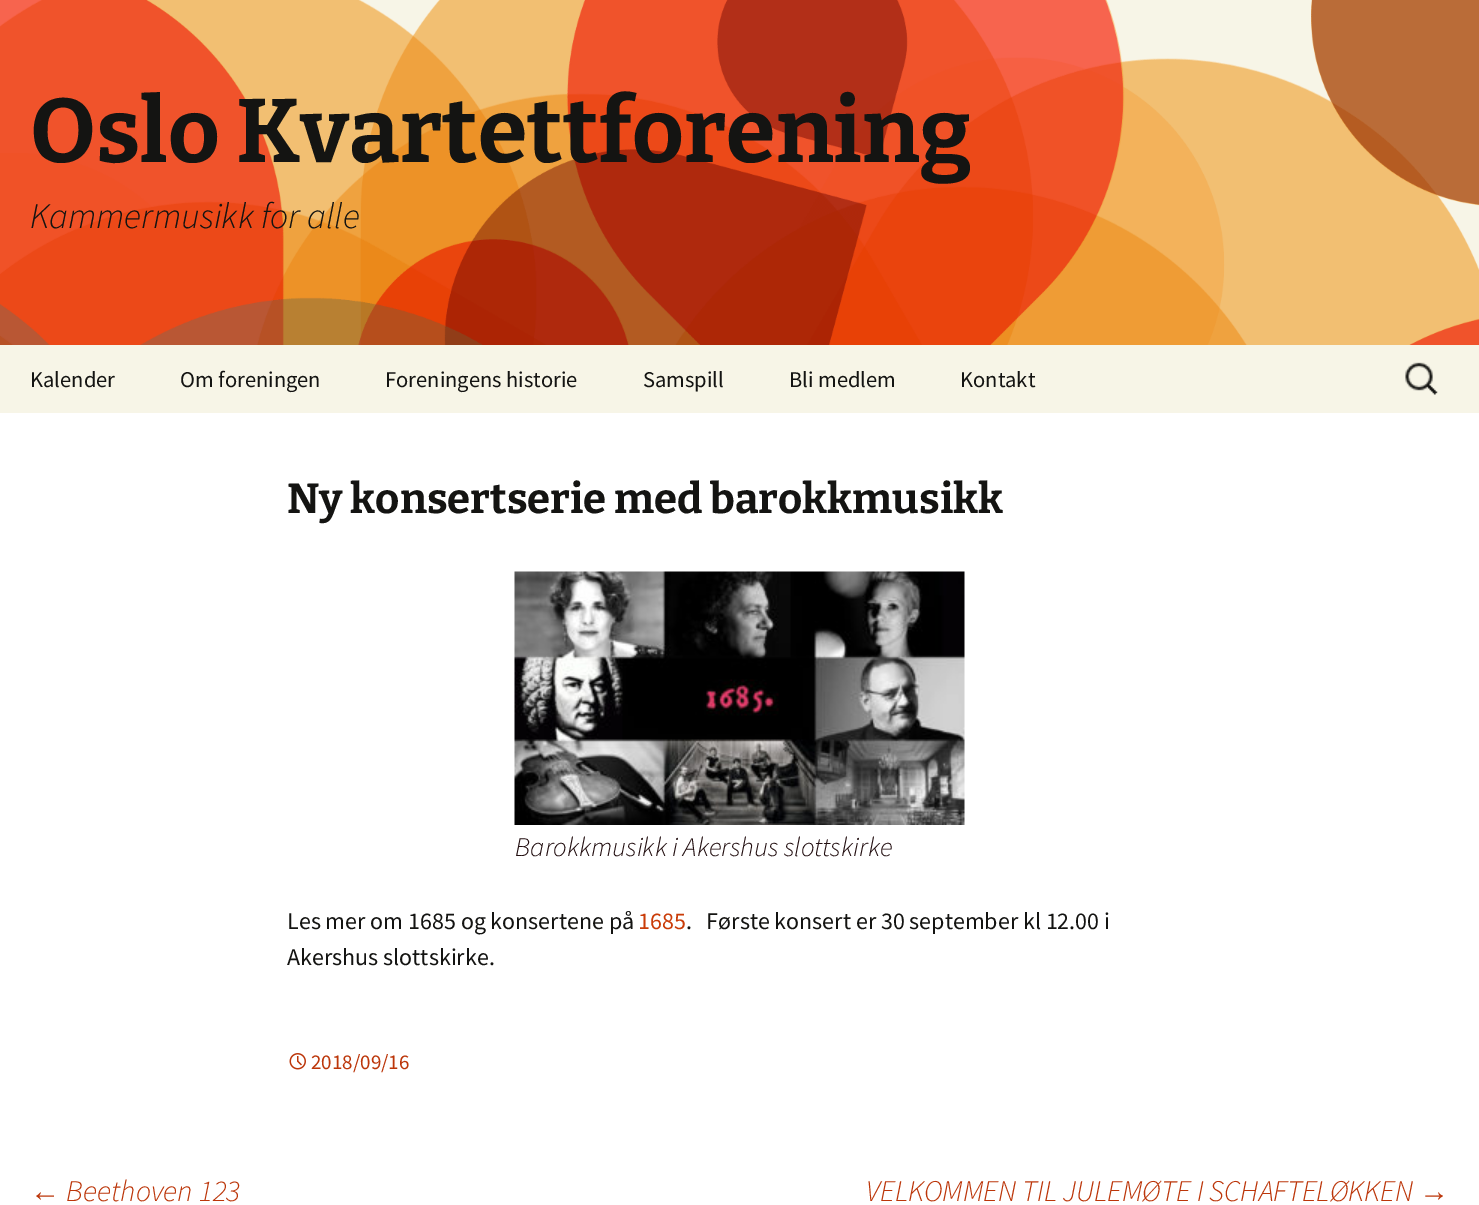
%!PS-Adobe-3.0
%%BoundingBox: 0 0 1479 1205
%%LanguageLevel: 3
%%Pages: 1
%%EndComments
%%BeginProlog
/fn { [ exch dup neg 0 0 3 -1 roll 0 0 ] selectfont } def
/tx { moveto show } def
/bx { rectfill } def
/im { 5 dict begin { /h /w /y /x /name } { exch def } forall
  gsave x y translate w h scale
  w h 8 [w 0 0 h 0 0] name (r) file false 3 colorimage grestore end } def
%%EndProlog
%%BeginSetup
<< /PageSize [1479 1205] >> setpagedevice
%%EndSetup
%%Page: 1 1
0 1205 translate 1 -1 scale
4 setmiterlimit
1 setgray
0 0 1479 1205 bx
(image0.raw) 0 0 1479 345 im
/Bitter-Thin 90 fn
0.078 0.078 0.071 setrgbcolor
(Oslo Kvartettforening) 30 162 tx
/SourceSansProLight-LightItalic 36 fn
(Kammermusikk for alle) 30 228 tx
0.969 0.961 0.906 setrgbcolor
0 345 1479 68 bx
/SourceSansPro-Regular 22.5 fn
0.078 0.078 0.071 setrgbcolor
(Kalender) 30 387 tx
(Om foreningen) 180 387 tx
(Foreningens historie) 385 387 tx
(Samspill) 643 387 tx
(Bli medlem) 789 387 tx
(Kontakt) 960 387 tx
(image1.raw) 1405 362 33 33 im
/Bitter-Thin 42 fn
(Ny konsertserie med barokkmusikk) 287 513 tx
(image2.raw) 514 571 451 254 im
/SourceSansProLight-LightItalic 27 fn
0.133 0.055 0.063 setrgbcolor
(Barokkmusikk i Akershus slottskirke) 515 856 tx
/SourceSansPro-Regular 24 fn
0.078 0.078 0.071 setrgbcolor
(Les mer om 1685 og konsertene på) 287 929 tx
0.792 0.235 0.031 setrgbcolor
(1685) 638 929 tx
0.078 0.078 0.071 setrgbcolor
(.   Første konsert er 30 september kl 12.00 i) 686 929 tx
(Akershus slottskirke.) 287 965 tx
(image3.raw) 289 1053 17 17 im
/SourceSansPro-Regular 21 fn
0.737 0.212 0.039 setrgbcolor
(2018/09/16) 311 1069 tx
/LiberationSans-Italic 30 fn
(←) 30 1201 tx
/SourceSansProLight-LightItalic 30 fn
(Beethoven 123) 66 1201 tx
(VELKOMMEN TIL JULEMØTE I SCHAFTELØKKEN) 866 1201 tx
/LiberationSans-Italic 30 fn
(→) 1419 1201 tx
showpage
%%EOF
